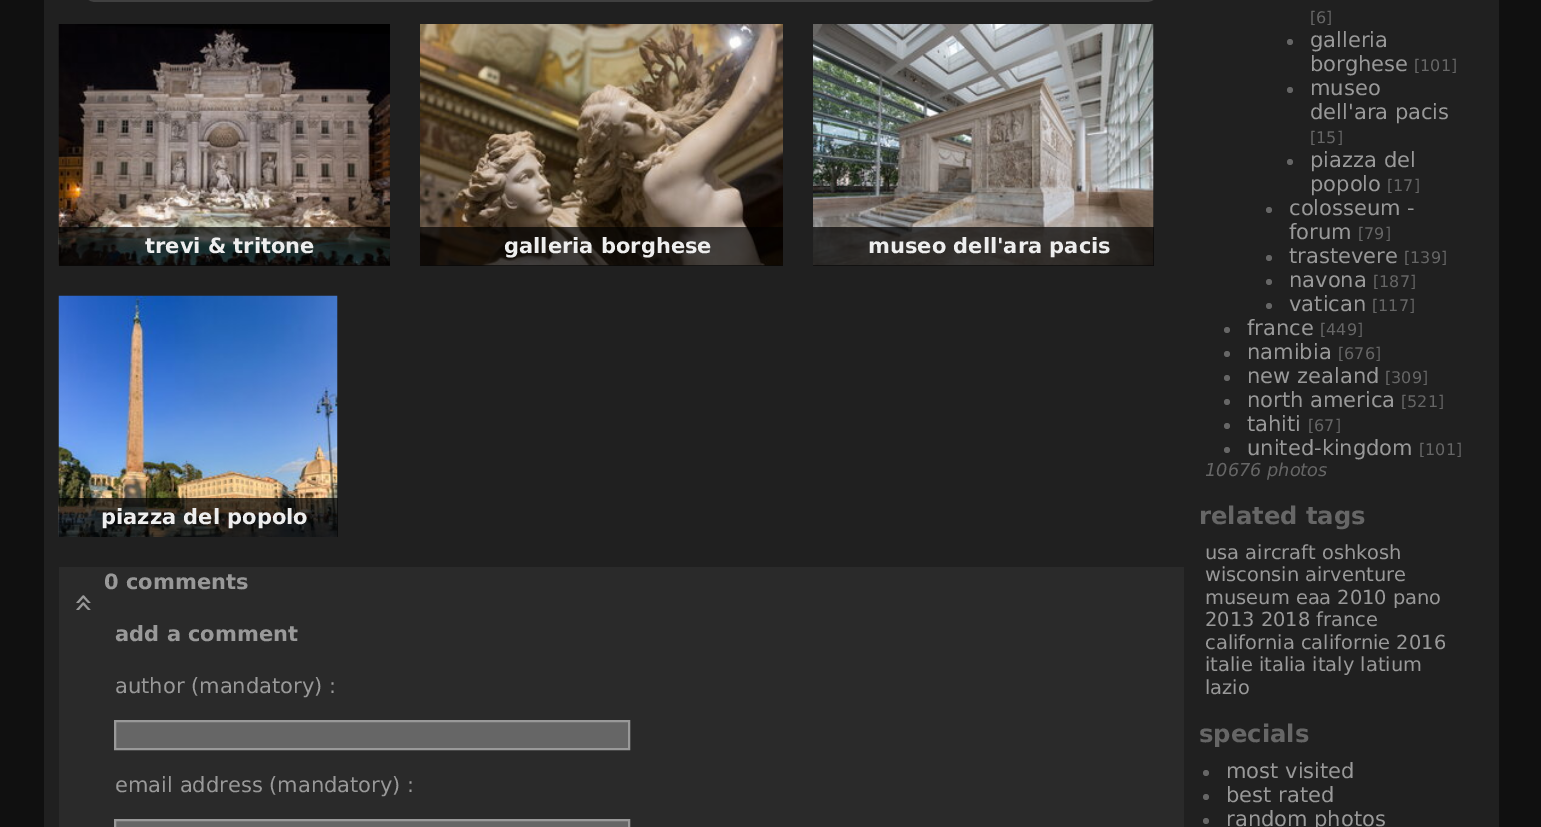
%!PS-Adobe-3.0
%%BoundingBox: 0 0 1541 827
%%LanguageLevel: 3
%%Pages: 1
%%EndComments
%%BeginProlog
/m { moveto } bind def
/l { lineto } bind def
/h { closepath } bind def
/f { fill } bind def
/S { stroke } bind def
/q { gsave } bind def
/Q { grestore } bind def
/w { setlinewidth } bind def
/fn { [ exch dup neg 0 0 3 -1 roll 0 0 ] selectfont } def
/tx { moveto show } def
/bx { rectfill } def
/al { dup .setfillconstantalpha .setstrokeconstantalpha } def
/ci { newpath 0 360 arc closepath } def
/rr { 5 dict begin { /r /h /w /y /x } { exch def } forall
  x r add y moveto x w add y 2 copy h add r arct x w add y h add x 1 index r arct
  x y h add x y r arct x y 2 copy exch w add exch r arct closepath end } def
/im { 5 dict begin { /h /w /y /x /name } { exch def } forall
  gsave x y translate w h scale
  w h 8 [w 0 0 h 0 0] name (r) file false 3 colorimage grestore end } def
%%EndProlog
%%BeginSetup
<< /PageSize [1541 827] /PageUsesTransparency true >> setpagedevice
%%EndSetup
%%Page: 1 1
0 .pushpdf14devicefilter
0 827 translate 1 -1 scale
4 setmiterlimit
0.063 setgray
0 0 1541 827 bx
0.125 setgray
44 0 1455 827 bx
0.251 setgray
81 -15 1080 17 15 rr f
(image0.raw) 58 24 332 242 im
0.7 al
0 setgray
59 227 331 39 bx
/DejaVuSans-Bold 21 fn
1 al
0.933 setgray
(trevi & tritone) 145 253 tx
(image1.raw) 420 24 363 242 im
0.7 al
0 setgray
420 227 363 39 bx
1 al
0.933 setgray
(galleria borghese) 504 253 tx
(image2.raw) 813 24 341 242 im
0.7 al
0 setgray
813 227 341 39 bx
1 al
0.933 setgray
(museo dell'ara pacis) 868 253 tx
(image3.raw) 58 295 280 242 im
0.7 al
0 setgray
59 498 279 39 bx
1 al
0.933 setgray
(piazza del popolo) 101 524 tx
0.165 setgray
59 567 1125 260 bx
0.6 setgray
(0 comments) 104 589 tx
/DejaVuSans-Regular 33 fn
q 93 613 translate -90 rotate 0 0 m (») show Q
/DejaVuSans-Bold 21 fn
(add a comment) 115 641 tx
/DejaVuSans-Regular 21 fn
(author \(mandatory\) :) 115 693 tx
0.4 setgray
115 721 m 629 721 l 629 749 l 115 749 l h q f Q
0.6 setgray
2 w
S
(email address \(mandatory\) :) 115 792 tx
0.4 setgray
115 820 m 629 820 l 629 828 l 115 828 l h q f Q
0.6 setgray
S
/DejaVuSans-Regular 16 fn
0.4 setgray
([6]) 1310 23 tx
1290 42 3 ci f
/DejaVuSans-Regular 21 fn
0.6 setgray
(galleria) 1310 47 tx
(borghese) 1310 71 tx
/DejaVuSans-Regular 16 fn
0.4 setgray
([101]) 1414 71 tx
1290 90 3 ci f
/DejaVuSans-Regular 21 fn
0.6 setgray
(museo) 1310 95 tx
(dell'ara pacis) 1310 119 tx
/DejaVuSans-Regular 16 fn
0.4 setgray
([15]) 1310 143 tx
1290 162 3 ci f
/DejaVuSans-Regular 21 fn
0.6 setgray
(piazza del) 1310 167 tx
(popolo) 1310 191 tx
/DejaVuSans-Regular 16 fn
0.4 setgray
([17]) 1387 191 tx
1269 210 3 ci f
/DejaVuSans-Regular 21 fn
0.6 setgray
(colosseum -) 1289 215 tx
(forum) 1289 239 tx
/DejaVuSans-Regular 16 fn
0.4 setgray
([79]) 1358 239 tx
1269 258 3 ci f
/DejaVuSans-Regular 21 fn
0.6 setgray
(trastevere) 1289 263 tx
/DejaVuSans-Regular 16 fn
0.4 setgray
([139]) 1404 263 tx
1269 282 3 ci f
/DejaVuSans-Regular 21 fn
0.6 setgray
(navona) 1289 287 tx
/DejaVuSans-Regular 16 fn
0.4 setgray
([187]) 1373 287 tx
1269 306 3 ci f
/DejaVuSans-Regular 21 fn
0.6 setgray
(vatican) 1289 311 tx
/DejaVuSans-Regular 16 fn
0.4 setgray
([117]) 1372 311 tx
1227 330 3 ci f
/DejaVuSans-Regular 21 fn
0.6 setgray
(france) 1247 335 tx
/DejaVuSans-Regular 16 fn
0.4 setgray
([449]) 1320 335 tx
1227 354 3 ci f
/DejaVuSans-Regular 21 fn
0.6 setgray
(namibia) 1247 359 tx
/DejaVuSans-Regular 16 fn
0.4 setgray
([676]) 1338 359 tx
1227 378 3 ci f
/DejaVuSans-Regular 21 fn
0.6 setgray
(new zealand) 1247 383 tx
/DejaVuSans-Regular 16 fn
0.4 setgray
([309]) 1385 383 tx
1227 402 3 ci f
/DejaVuSans-Regular 21 fn
0.6 setgray
(north america) 1247 407 tx
/DejaVuSans-Regular 16 fn
0.4 setgray
([521]) 1401 407 tx
1227 426 3 ci f
/DejaVuSans-Regular 21 fn
0.6 setgray
(tahiti) 1247 431 tx
/DejaVuSans-Regular 16 fn
0.4 setgray
([67]) 1308 431 tx
1227 450 3 ci f
/DejaVuSans-Regular 21 fn
0.6 setgray
(united-kingdom) 1247 455 tx
/DejaVuSans-Regular 16 fn
0.4 setgray
([101]) 1419 455 tx
/DejaVuSans-Italic 17.75 fn
(10676 photos) 1205 476 tx
/DejaVuSans-Bold 24.25 fn
(related tags) 1199 524 tx
/DejaVuSans-Regular 19.4 fn
0.6 setgray
(usa aircraft oshkosh) 1205 559 tx
(wisconsin airventure) 1205 581 tx
(museum eaa 2010 pano) 1205 604 tx
(2013 2018 france) 1205 626 tx
(california californie 2016) 1205 649 tx
(italie italia italy latium) 1205 671 tx
(lazio) 1205 694 tx
/DejaVuSans-Bold 24.25 fn
0.4 setgray
(specials) 1199 742 tx
1206 773 3 ci f
/DejaVuSans-Regular 21 fn
0.6 setgray
(most visited) 1226 778 tx
0.4 setgray
1206 797 3 ci f
0.6 setgray
(best rated) 1226 802 tx
0.4 setgray
1206 821 3 ci f
0.6 setgray
(random photos) 1226 826 tx
.poppdf14devicefilter showpage
%%EOF
